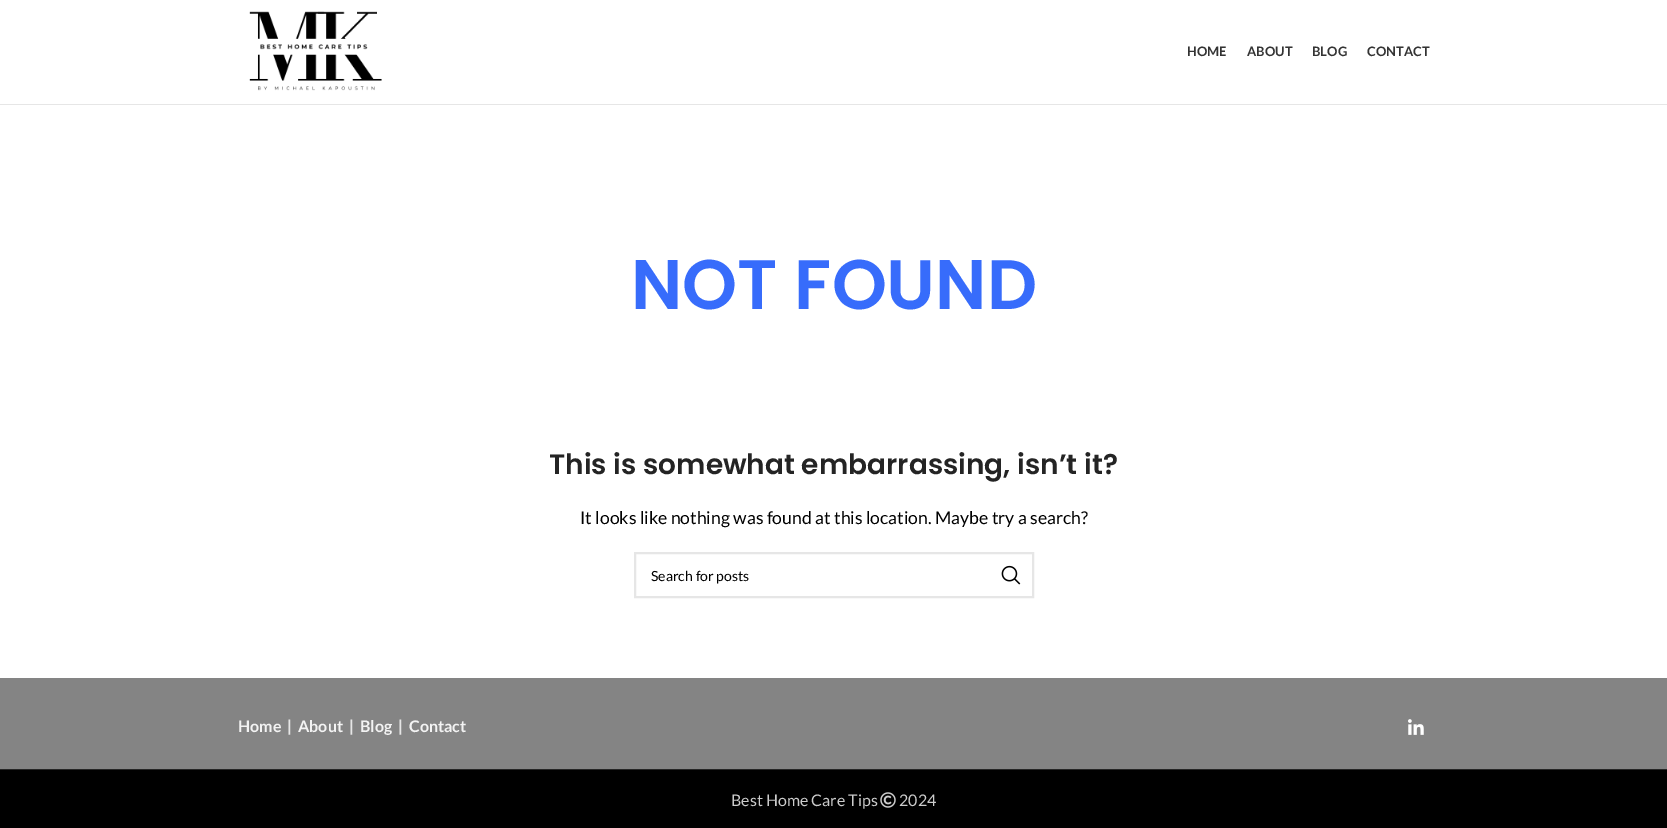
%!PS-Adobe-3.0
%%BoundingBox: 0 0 1667 828
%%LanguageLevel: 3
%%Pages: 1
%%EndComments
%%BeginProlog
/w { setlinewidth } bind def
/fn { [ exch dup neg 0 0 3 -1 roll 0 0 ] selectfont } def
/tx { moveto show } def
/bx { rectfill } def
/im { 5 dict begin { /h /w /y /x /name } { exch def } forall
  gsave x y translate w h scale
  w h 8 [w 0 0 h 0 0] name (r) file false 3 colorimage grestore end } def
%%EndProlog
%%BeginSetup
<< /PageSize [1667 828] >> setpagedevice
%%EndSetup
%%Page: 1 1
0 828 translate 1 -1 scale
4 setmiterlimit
1 setgray
0 0 1667 828 bx
0.902 setgray
0 104 1667 1 bx
(image0.raw) 249 11 133 80 im
/Lato-Bold 13 fn
0.2 setgray
(HOME) 1187 56 tx
(ABOUT) 1247 56 tx
(BLOG) 1312 56 tx
(CONTACT) 1367 56 tx
/Poppins-SemiBold 70 fn
0.216 0.424 0.984 setrgbcolor
(NOT FOUND) 631 309 tx
/Poppins-SemiBold 28 fn
0.141 setgray
(This is somewhat embarrassing, isn’t it?) 549 474 tx
/Lato-Regular 17.6 fn
0 setgray
(It looks like nothing was found at this location. Maybe try a search?) 580 524 tx
0.902 setgray
2 w
635 553 398 44 rectstroke
/Lato-Regular 14 fn
0 setgray
(Search for posts) 651 581 tx
(image1.raw) 1001 565 20 20 im
0 770 1667 58 bx
0.518 setgray
0 678 1667 91 bx
/Lato-Bold 16 fn
0.953 setgray
(Home) 238 732 tx
0.902 setgray
(|) 287 732 tx
0.953 setgray
(About) 298 732 tx
0.902 setgray
(|) 349 732 tx
0.953 setgray
(Blog) 360 732 tx
0.902 setgray
(|) 398 732 tx
0.953 setgray
(Contact) 409 732 tx
(image2.raw) 1408 719 16 16 im
0.149 setgray
0 769 1667 1 bx
/Lato-Regular 16 fn
0.8 setgray
(Best Home Care Tips) 731 806 tx
(image3.raw) 880 792 16 16 im
(2024) 899 806 tx
showpage
%%EOF
